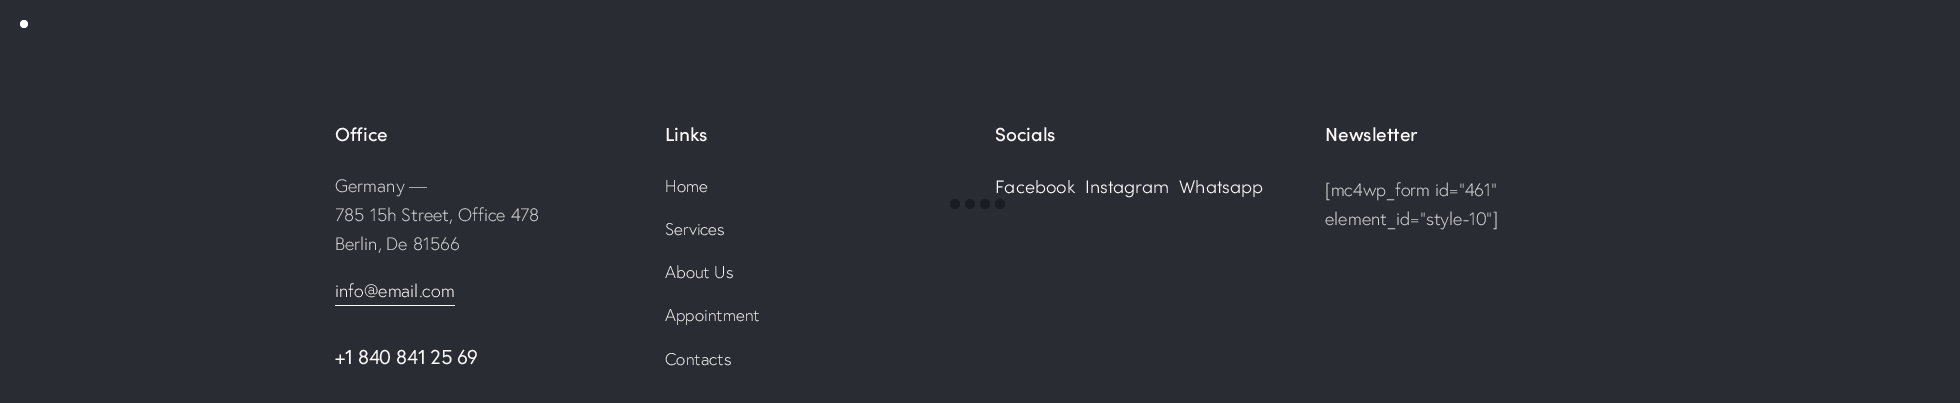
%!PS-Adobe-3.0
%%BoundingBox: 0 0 1960 403
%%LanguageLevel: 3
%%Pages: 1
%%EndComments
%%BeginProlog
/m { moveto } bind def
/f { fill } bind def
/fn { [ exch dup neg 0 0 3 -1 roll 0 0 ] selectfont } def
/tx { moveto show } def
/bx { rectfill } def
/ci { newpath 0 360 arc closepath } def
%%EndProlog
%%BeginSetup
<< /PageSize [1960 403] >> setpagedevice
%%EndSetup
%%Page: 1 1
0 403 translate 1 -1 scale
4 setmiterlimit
0.165 0.173 0.2 setrgbcolor
0 0 1960 403 bx
1 setgray
24 24 4 ci f
/Sofia-Medium 19 fn
0.976 setgray
(Office) 335 141 tx
/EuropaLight-Light 18 fn
0.839 0.843 0.847 setrgbcolor
(Germany —) 335 192 tx
(785 15h Street, Office 478) 335 221 tx
(Berlin, De 81566) 335 250 tx
0.976 setgray
(info@email.com) 335 297 tx
335 305 120 1 bx
/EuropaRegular-Regular 20 fn
335 364 m -0.4 0 (+1 840 841 25 69) ashow
/Sofia-Medium 19 fn
(Links) 665 141 tx
/EuropaLight-Light 17 fn
(Home) 665 192 tx
(Services) 665 235 tx
(About Us) 665 278 tx
(Appointment) 665 321 tx
(Contacts) 665 365 tx
/Sofia-Medium 19 fn
(Socials) 995 141 tx
/Sofia-Light 18 fn
(Facebook) 995 193 tx
(Instagram) 1085 193 tx
(Whatsapp) 1179 193 tx
/Sofia-Medium 19 fn
(Newsletter) 1325 141 tx
/EuropaLight-Light 18 fn
0.839 0.843 0.847 setrgbcolor
([mc4wp_form id="461") 1325 196 tx
(element_id="style-10"]) 1325 225 tx
0.098 0.11 0.133 setrgbcolor
955 204 5 ci f
970 204 5 ci f
985 204 5 ci f
1000 204 5 ci f
showpage
%%EOF
